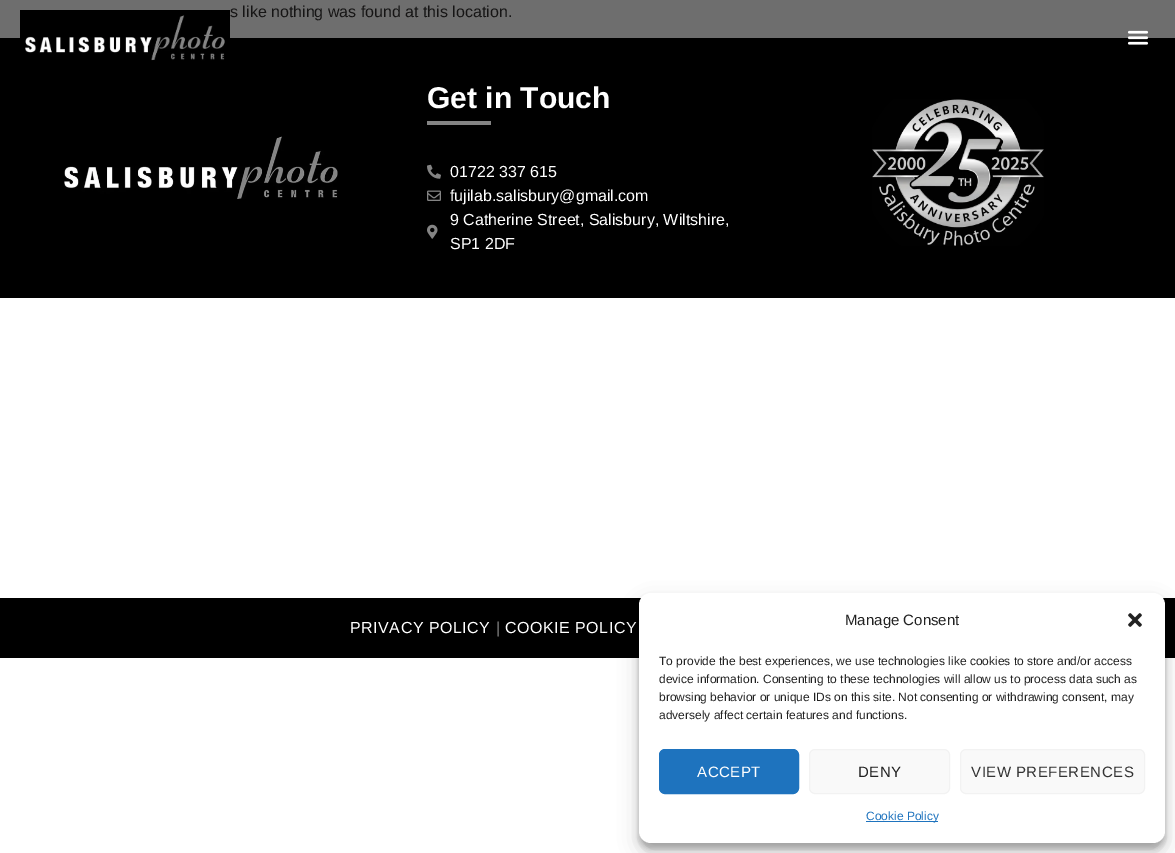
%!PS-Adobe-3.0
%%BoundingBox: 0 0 1175 853
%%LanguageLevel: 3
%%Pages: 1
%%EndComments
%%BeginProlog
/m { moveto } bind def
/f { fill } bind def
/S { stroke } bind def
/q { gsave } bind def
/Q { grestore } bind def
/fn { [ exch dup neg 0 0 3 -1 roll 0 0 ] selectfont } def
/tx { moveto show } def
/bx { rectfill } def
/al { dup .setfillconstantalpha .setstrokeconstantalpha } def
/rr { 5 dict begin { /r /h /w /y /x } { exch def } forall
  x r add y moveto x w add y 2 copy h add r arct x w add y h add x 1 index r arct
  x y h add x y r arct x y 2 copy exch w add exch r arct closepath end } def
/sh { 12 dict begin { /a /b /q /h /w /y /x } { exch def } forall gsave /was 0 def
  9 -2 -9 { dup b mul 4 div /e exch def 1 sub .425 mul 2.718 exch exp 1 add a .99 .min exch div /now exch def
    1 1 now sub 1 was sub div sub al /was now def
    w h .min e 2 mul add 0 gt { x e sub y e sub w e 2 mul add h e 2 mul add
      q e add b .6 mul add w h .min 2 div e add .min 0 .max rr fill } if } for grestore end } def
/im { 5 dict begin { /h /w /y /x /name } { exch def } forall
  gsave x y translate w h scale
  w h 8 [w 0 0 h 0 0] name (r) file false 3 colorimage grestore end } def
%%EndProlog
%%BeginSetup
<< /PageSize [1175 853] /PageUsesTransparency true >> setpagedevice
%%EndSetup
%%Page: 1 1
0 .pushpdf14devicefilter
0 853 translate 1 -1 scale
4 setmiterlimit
1 setgray
0 0 1175 853 bx
0.431 setgray
0 0 1175 38 bx
/LiberationSans-Regular 16 fn
0.086 0.082 0.082 setrgbcolor
(s like nothing was found at this location.) 230 17 tx
0 setgray
0 38 1175 260 bx
(image0.raw) 20 10 210 51 im
(image1.raw) 1127 30 22 15 im
(image2.raw) 64 136 274 63 im
/LiberationSans-Bold 30 fn
1 setgray
(Get in Touch) 427 108 tx
0.518 setgray
427 121 64 4 bx
(image3.raw) 427 164 14 15 im
/LiberationSans-Regular 16 fn
1 setgray
(01722 337 615) 450 177 tx
(image4.raw) 427 190 14 11 im
(fujilab.salisbury@gmail.com) 450 201 tx
(image5.raw) 427 224 11 15 im
(9 Catherine Street, Salisbury, Wiltshire,) 450 225 tx
(SP1 2DF) 450 249 tx
(image6.raw) 872 99 172 147 im
0 setgray
0 598 1175 60 bx
1 setgray
350 633 m 0.5 0 (PRIVACY POLICY) ashow
0.518 setgray
496 633 m 0.5 0 (|) ashow
1 setgray
505 633 m 0.5 0 (COOKIE POLICY) ashow
0 setgray
639 599 526 250 12 3 0.23 sh
639 603 526 250 12 10 0.19 sh
1 setgray
639 593 526 250 12 rr f
/LiberationSans-Regular 15 fn
0.133 setgray
(Manage Consent) 845 625 tx
(image7.raw) 1128 613 14 14 im
/LiberationSans-Regular 12 fn
(To provide the best experiences, we use technologies like cookies to store and/or access) 659 665 tx
(device information. Consenting to these technologies will allow us to process data such as) 659 683 tx
(browsing behavior or unique IDs on this site. Not consenting or withdrawing consent, may) 659 701 tx
(adversely affect certain features and functions.) 659 719 tx
0.118 0.451 0.745 setrgbcolor
659.5 749.5 139 44 5.5 rr q f Q
S
/LiberationSans-Regular 15 fn
1 setgray
697 777 m 0.5 0 (ACCEPT) ashow
0.976 setgray
809.5 749.5 140 44 5.5 rr q f Q
0.949 setgray
S
0.133 setgray
858 777 m 0.5 0 (DENY) ashow
0.976 setgray
960.5 749.5 184 44 5.5 rr q f Q
0.949 setgray
S
0.2 setgray
971 777 m 0.5 0 (VIEW PREFERENCES) ashow
0.118 0.451 0.745 setrgbcolor
866 821 72 1 bx
/LiberationSans-Regular 12 fn
(Cookie Policy) 866 820 tx
.poppdf14devicefilter showpage
%%EOF
